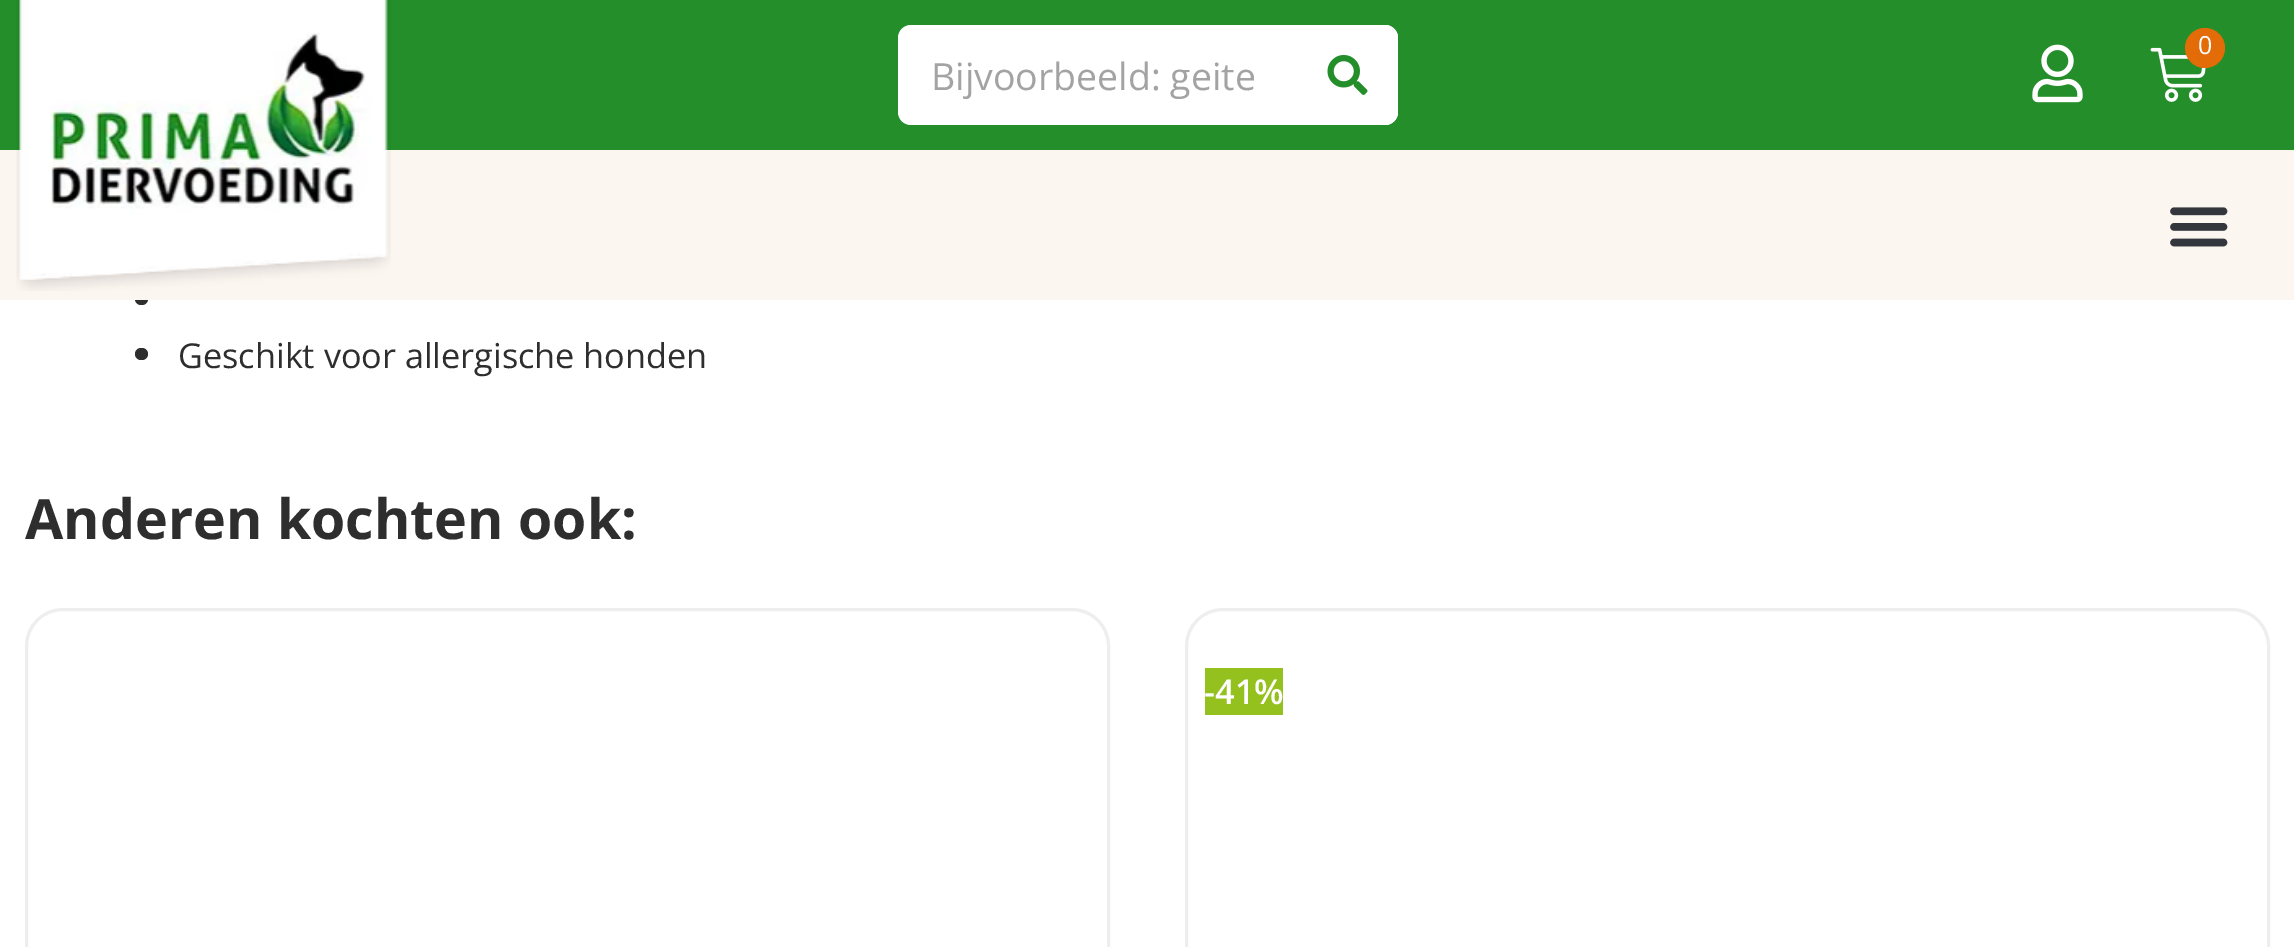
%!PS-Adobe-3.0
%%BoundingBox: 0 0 2294 947
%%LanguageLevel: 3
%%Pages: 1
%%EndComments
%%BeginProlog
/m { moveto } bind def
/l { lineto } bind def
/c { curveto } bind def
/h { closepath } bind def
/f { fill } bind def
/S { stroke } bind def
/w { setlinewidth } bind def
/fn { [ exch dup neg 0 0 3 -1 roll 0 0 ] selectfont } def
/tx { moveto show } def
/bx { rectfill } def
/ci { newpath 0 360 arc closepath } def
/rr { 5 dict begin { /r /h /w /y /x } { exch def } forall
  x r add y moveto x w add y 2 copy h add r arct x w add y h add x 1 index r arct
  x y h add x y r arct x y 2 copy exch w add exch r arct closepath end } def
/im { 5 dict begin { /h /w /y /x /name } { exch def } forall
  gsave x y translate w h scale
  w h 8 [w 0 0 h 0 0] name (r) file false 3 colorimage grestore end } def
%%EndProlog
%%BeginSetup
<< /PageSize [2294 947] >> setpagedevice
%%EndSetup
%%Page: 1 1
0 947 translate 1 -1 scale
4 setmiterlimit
1 setgray
0 0 2294 947 bx
0.141 0.557 0.165 setrgbcolor
0 0 2294 150 bx
0.18 setgray
135 293 13 12 6 rr f
0.988 0.965 0.945 setrgbcolor
0 150 2294 150 bx
(image0.raw) 16 0 375 291 im
(image1.raw) 2032 44 51 59 im
(image2.raw) 2150 47 56 55 im
0.89 0.424 0.035 setrgbcolor
2205 48 20 ci f
/OpenSans-Regular 25 fn
1 setgray
(0) 2198 54 tx
898 25 500 100 13 rr f
/OpenSans-Regular 37.5 fn
0.639 setgray
(Bijvoorbeeld: geite) 931 90 tx
1 setgray
1298 25 m 1385 25 l 1392 25 1398 31 1398 38 c 1398 112 l 1398 119 1392 125 1385 125 c 1298 125 l h f
(image3.raw) 1327 55 41 40 im
(image4.raw) 2170 207 58 40 im
0.18 setgray
135 348 13 12 6 rr f
/OpenSans-Regular 34.25 fn
(Geschikt voor allergische honden) 178 368 tx
/OpenSans-Bold 55.5 fn
(Anderen kochten ook:) 25 539 tx
0.933 setgray
3 w
26.5 609.5 1082 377 36.5 rr S
1186.5 609.5 1082 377 36.5 rr S
0.584 0.757 0.122 setrgbcolor
1205 668 78 47 bx
/OpenSans-SemiBold 34.25 fn
1 setgray
(-41%) 1204 704 tx
showpage
%%EOF
